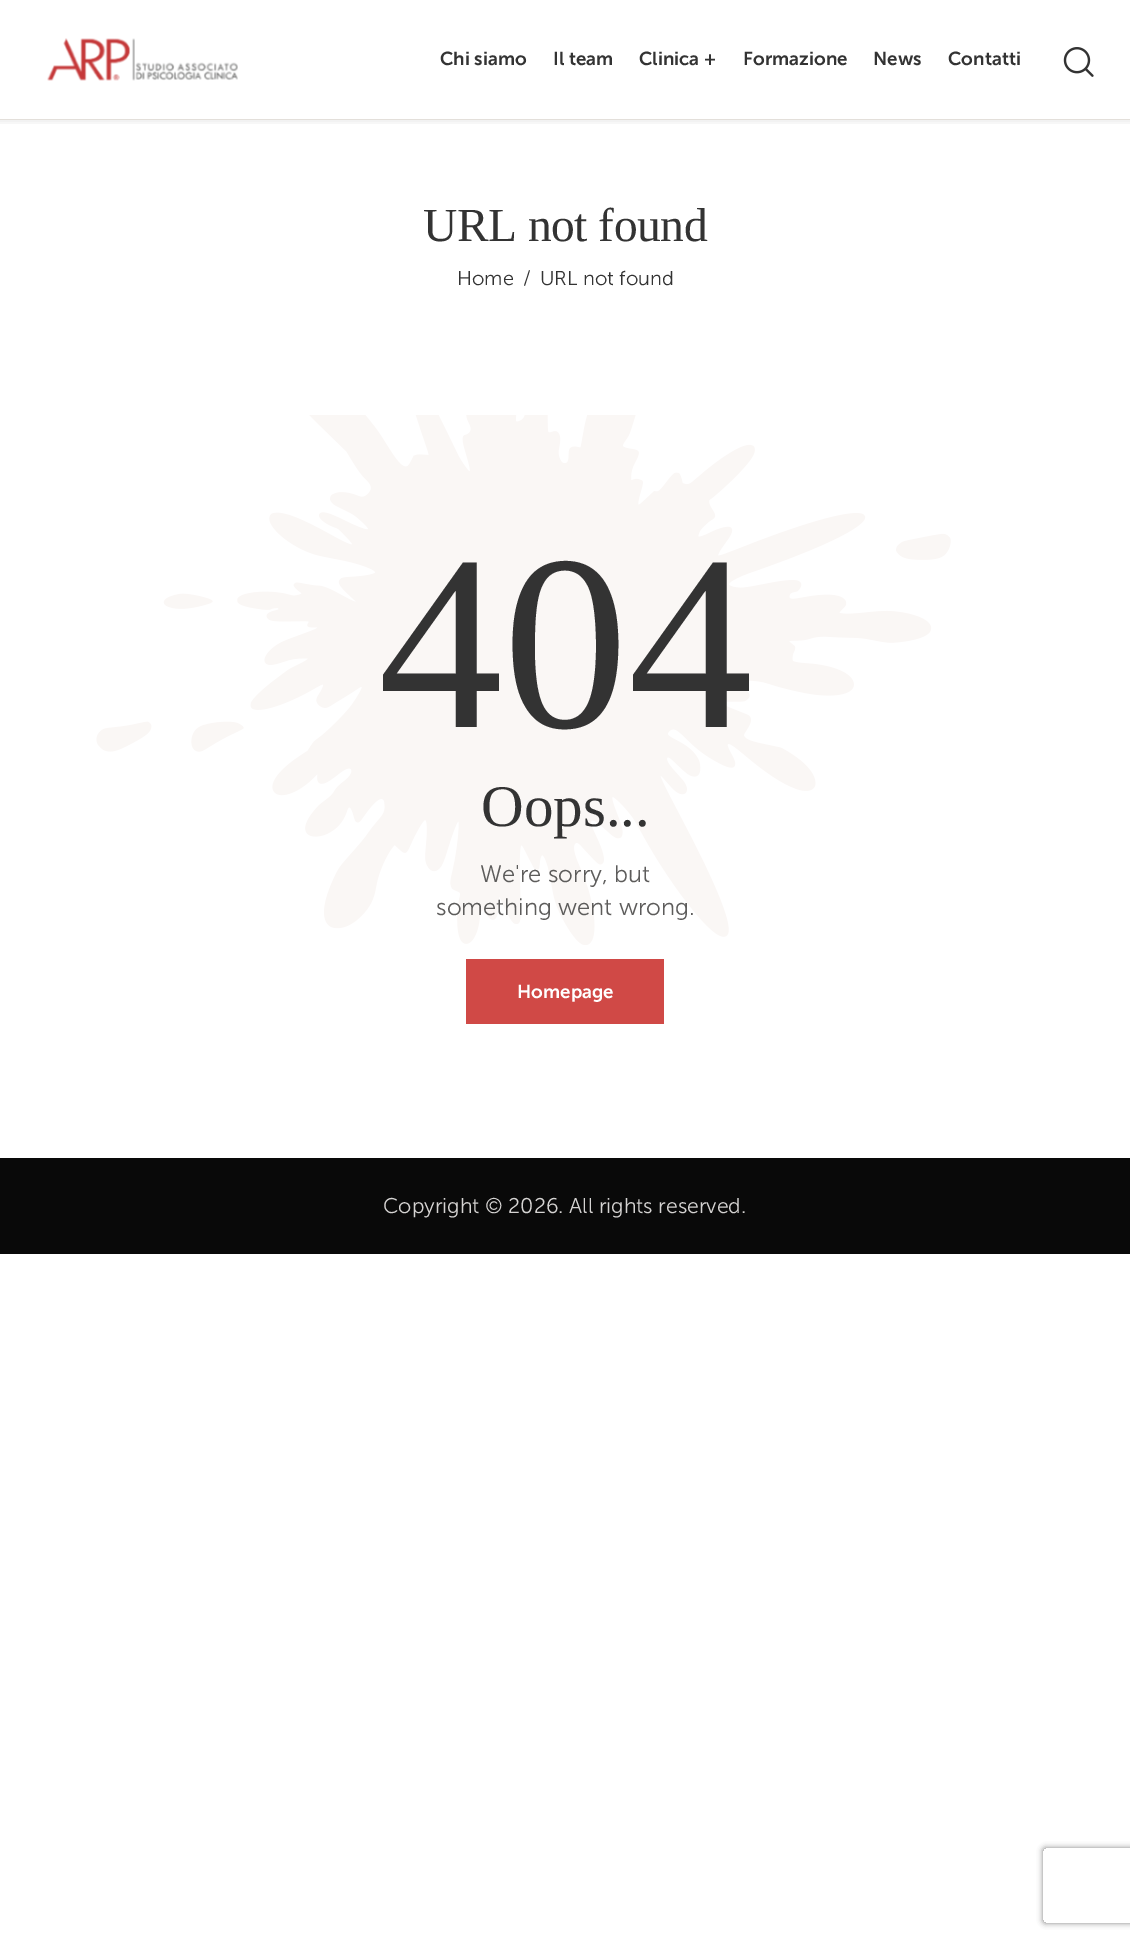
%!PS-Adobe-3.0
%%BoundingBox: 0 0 1130 1939
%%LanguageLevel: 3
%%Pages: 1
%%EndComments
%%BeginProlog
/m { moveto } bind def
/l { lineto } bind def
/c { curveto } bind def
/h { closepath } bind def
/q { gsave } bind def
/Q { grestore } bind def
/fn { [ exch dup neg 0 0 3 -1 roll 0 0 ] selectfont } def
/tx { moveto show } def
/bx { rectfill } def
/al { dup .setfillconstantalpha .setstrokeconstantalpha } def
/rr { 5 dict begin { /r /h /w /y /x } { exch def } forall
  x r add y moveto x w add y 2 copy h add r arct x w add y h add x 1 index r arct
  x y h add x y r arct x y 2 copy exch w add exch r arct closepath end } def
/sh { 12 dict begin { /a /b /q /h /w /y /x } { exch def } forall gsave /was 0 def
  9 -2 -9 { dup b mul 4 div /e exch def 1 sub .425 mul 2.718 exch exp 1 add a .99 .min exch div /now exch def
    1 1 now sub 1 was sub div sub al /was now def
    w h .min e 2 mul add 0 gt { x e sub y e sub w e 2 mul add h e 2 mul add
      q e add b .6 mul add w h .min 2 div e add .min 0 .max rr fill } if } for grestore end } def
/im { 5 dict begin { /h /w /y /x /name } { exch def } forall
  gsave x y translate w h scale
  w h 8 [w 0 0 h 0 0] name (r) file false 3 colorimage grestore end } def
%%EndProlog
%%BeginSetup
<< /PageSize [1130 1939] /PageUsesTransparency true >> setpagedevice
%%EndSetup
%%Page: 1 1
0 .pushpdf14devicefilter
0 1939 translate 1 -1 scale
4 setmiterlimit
1 setgray
0 0 1130 1939 bx
q
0 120 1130 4 rectclip
0 setgray
-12 1 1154 120 0 4 0.1 sh
Q
0.89 0.875 0.855 setrgbcolor
0 119 1130 1 bx
(image0.raw) 47 38 191 43 im
/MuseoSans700-SemiBold 18.75 fn
0.2 setgray
(Chi siamo) 440 65 tx
(Il team) 553 65 tx
(Clinica +) 639 65 tx
(Formazione) 743 65 tx
(News) 873 65 tx
(Contatti) 948 65 tx
(image1.raw) 1063 47 31 30 im
/LiberationSerif-Regular 47.5 fn
423 241 m -0.5 0 (URL not found) ashow
/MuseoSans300-Light 20 fn
(Home) 457 285 tx
(/) 523 285 tx
(URL not found) 540 285 tx
(image2.raw) 96 415 855 530 im
/LiberationSerif-Regular 250 fn
(404) 378 727 tx
/LiberationSerif-Regular 59 fn
(Oops...) 481 826 tx
/MuseoSans300-Light 23.75 fn
0.365 0.361 0.357 setrgbcolor
(We're sorry, but) 480 882 tx
(something went wrong.) 436 915 tx
0.816 0.286 0.275 setrgbcolor
466 959 198 65 bx
/MuseoSans700-SemiBold 18.75 fn
1 setgray
(Homepage) 517 998 tx
0.035 setgray
0 1158 1130 96 bx
/MuseoSans300-Light 21.25 fn
0.835 0.827 0.824 setrgbcolor
(Copyright © 2026. All rights reserved.) 383 1213 tx
q
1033 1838 m 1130 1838 l 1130 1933 l 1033 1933 l h 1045.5 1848 m 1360.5 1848 l 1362 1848 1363 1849 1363 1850.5 c 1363 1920.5 l 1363 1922 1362 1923 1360.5 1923 c 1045.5 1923 l 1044 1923 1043 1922 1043 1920.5 c 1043 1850.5 l 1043 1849 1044 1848 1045.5 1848 c h eoclip newpath
0.502 setgray
1043 1848 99 75 2.5 3 1 sh
Q
.poppdf14devicefilter showpage
%%EOF
